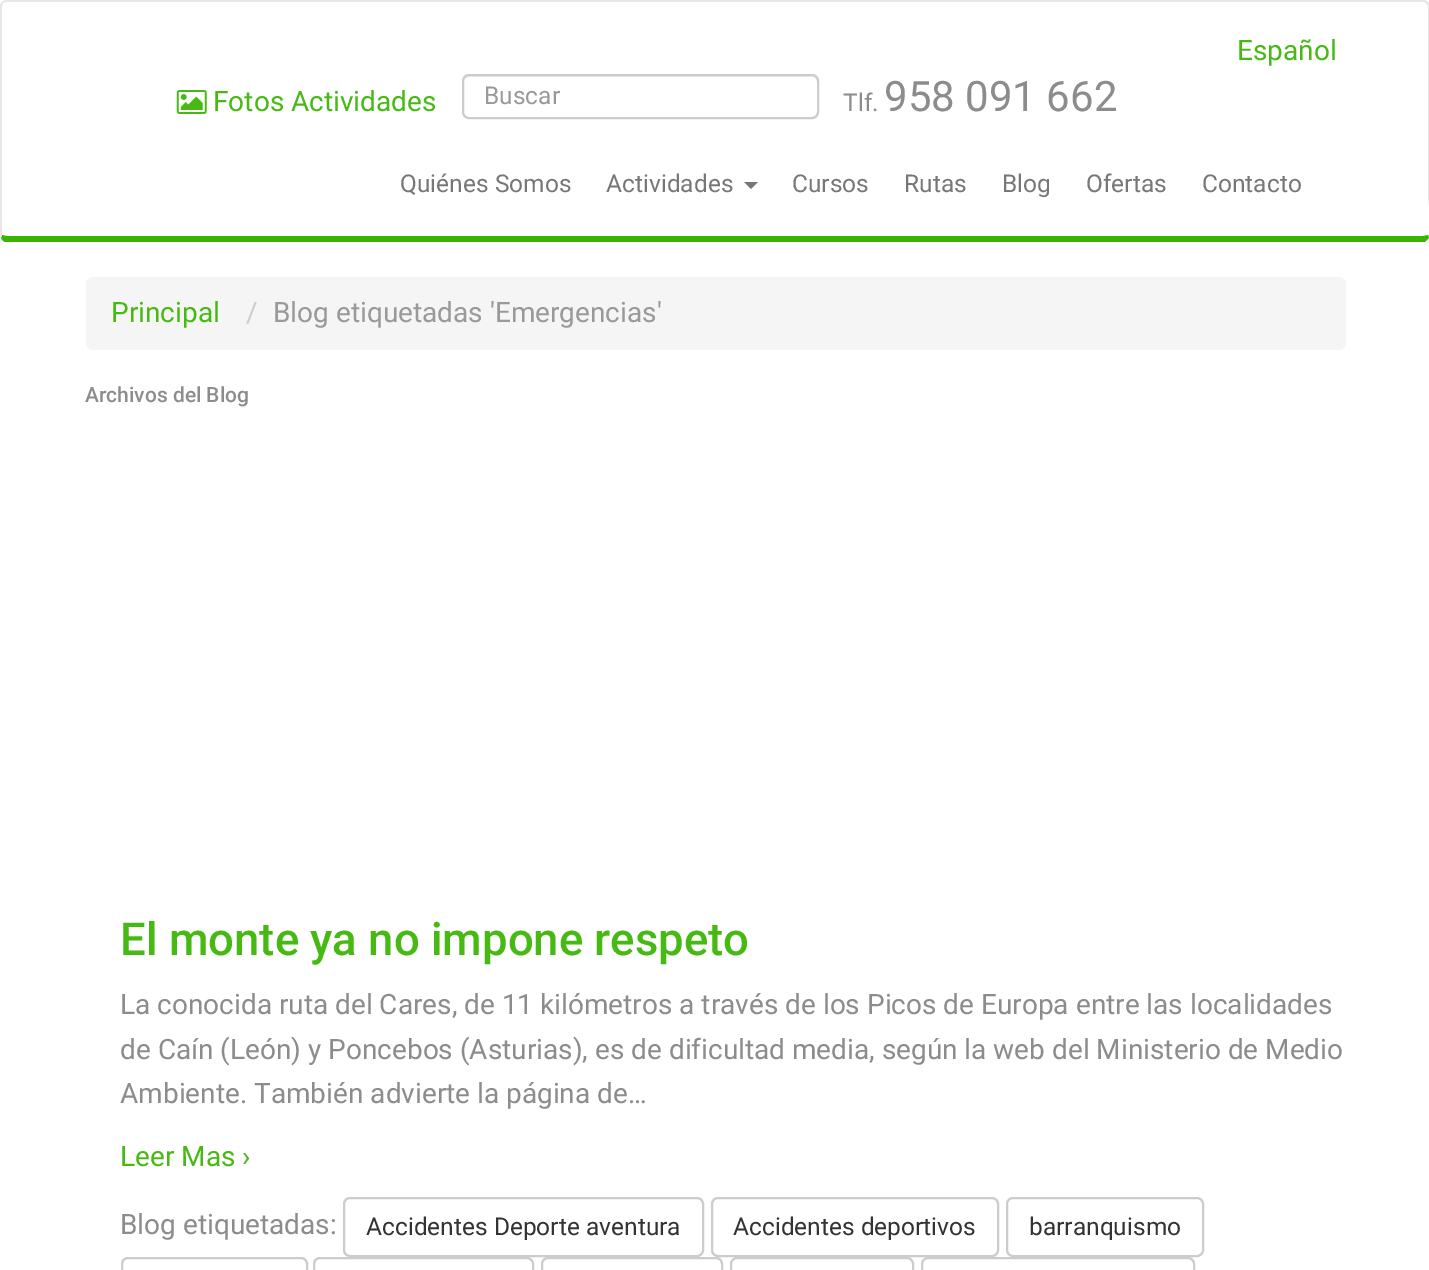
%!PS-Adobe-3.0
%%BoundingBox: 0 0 1429 1270
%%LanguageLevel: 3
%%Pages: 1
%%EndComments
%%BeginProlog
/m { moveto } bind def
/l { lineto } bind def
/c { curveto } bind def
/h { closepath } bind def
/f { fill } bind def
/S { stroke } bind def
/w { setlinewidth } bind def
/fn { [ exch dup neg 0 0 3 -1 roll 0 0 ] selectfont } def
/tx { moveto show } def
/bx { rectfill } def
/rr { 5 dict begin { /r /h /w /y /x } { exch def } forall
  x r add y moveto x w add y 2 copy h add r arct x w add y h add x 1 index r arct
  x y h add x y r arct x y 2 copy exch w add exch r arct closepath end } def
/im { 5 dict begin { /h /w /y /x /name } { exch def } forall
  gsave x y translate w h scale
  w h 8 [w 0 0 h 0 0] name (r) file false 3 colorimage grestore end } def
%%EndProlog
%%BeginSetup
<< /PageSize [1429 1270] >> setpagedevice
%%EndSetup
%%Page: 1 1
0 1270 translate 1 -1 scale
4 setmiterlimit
1 setgray
0 0 1429 1270 bx
0.906 setgray
7 0 m 5 0 3 1 2 2 c 3 3 l 4 2 6 2 7 2 c 1423 2 l 1424 2 1426 2 1426 3 c 1428 2 l 1427 1 1425 0 1423 0 c h f
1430 236 m 1429 238 l 1428 235 l 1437 226 1428 209 1428 196 c 1428 6 l 1426 3 l 1428 2 l 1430 5 l h f
0.22 0.71 0.004 setrgbcolor
5 242 m 3 241 2 240 1 238 c 2 235 l 3 235 5 236 7 236 c 1423 236 l 1425 236 1427 235 1428 235 c 1429 238 l 1425 242 l h f
0.906 setgray
0 7 m 0 234 l 1 238 l 2 235 l 2 7 l 2 6 2 4 3 3 c 2 2 l 1 3 0 5 0 7 c h f
/Roboto-Regular 28 fn
0.275 0.729 0.075 setrgbcolor
(Español) 1237 60 tx
(image0.raw) 176 90 31 24 im
(Fotos Actividades) 213 111 tx
0.925 setgray
469 77 m 812 77 l 815 77 817 79 817 82 c 817 79 816 75 812 75 c 469 75 l 465 75 464 79 464 82 c 464 79 466 77 469 77 c h f
0.8 setgray
2 w
463 75 355 43 6 rr S
/Roboto-Regular 24.5 fn
0.6 setgray
(Buscar) 484 104 tx
0.549 setgray
(Tlf.) 843 111 tx
/Roboto-Regular 42 fn
(958 091 662) 884 111 tx
/Roboto-Regular 24.5 fn
0.467 setgray
(Quiénes Somos) 400 192 tx
(Actividades) 606 192 tx
744 182 m 758 182 l 751 189 l h f
(Cursos) 792 192 tx
(Rutas) 904 192 tx
(Blog) 1002 192 tx
(Ofertas) 1086 192 tx
(Contacto) 1202 192 tx
0.961 setgray
86 277 1260 73 7 rr f
/Roboto-Regular 28 fn
0.275 0.729 0.075 setrgbcolor
(Principal) 111 322 tx
0.8 setgray
(/) 246 322 tx
0.6 setgray
(Blog etiquetadas 'Emergencias') 273 322 tx
/Roboto-Medium 21 fn
0.549 setgray
(Archivos del Blog) 85 402 tx
/Roboto-Medium 45.5 fn
0.275 0.729 0.075 setrgbcolor
(El monte ya no impone respeto) 120 955 tx
/Roboto-Regular 28 fn
0.549 setgray
(La conocida ruta del Cares, de 11 kilómetros a través de los Picos de Europa entre las localidades) 120 1014 tx
(de Caín \(León\) y Poncebos \(Asturias\), es de dificultad media, según la web del Ministerio de Medio) 120 1059 tx
(Ambiente. También advierte la página de…) 120 1103 tx
0.275 0.729 0.075 setrgbcolor
(Leer Mas ›) 120 1166 tx
0.549 setgray
(Blog etiquetadas:) 120 1234 tx
0.8 setgray
344 1198 359 58 6 rr S
/Roboto-Regular 24.5 fn
0.2 setgray
(Accidentes Deporte aventura) 366 1235 tx
0.8 setgray
712 1198 286 58 6 rr S
0.2 setgray
(Accidentes deportivos) 733 1235 tx
0.8 setgray
1007 1198 196 58 6 rr S
0.2 setgray
(barranquismo) 1029 1235 tx
0.8 setgray
122 1258 185 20 6 rr S
314 1258 219 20 6 rr S
542 1258 180 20 6 rr S
731 1258 182 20 6 rr S
922 1258 272 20 6 rr S
showpage
%%EOF
